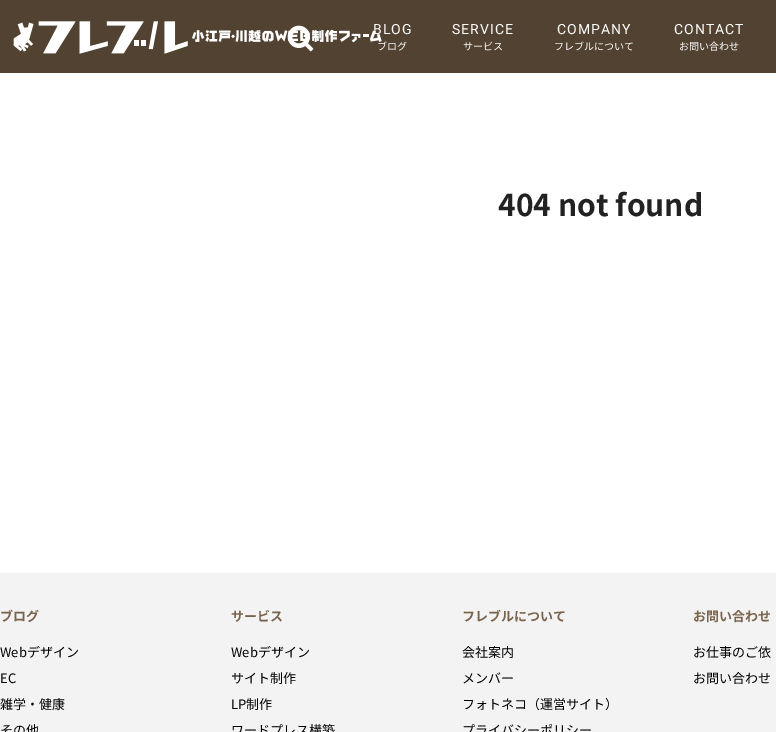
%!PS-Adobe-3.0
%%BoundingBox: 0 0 776 732
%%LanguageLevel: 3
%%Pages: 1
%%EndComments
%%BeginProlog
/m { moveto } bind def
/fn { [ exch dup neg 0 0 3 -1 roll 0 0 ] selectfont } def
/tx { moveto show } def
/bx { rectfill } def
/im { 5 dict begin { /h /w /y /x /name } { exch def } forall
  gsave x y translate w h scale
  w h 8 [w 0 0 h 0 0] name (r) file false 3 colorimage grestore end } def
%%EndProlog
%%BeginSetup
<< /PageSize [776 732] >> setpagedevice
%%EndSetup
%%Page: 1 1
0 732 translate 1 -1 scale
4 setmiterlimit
1 setgray
0 0 776 732 bx
0.322 0.259 0.192 setrgbcolor
0 0 776 73 bx
(image0.raw) 13 21 369 33 im
/Roboto-Regular 14 fn
1 setgray
373 34 m 1 0 (BLOG) ashow
/NotoSansJP-Regular 10 fn
(ブログ) 377 50 tx
/Roboto-Regular 14 fn
452 34 m 1 0 (SERVICE) ashow
/NotoSansJP-Regular 10 fn
(サービス) 463 50 tx
/Roboto-Regular 14 fn
557 34 m 1 0 (COMPANY) ashow
/NotoSansJP-Regular 10 fn
(フレブルについて) 554 50 tx
/Roboto-Regular 14 fn
674 34 m 1 0 (CONTACT) ashow
/NotoSansJP-Regular 10 fn
(お問い合わせ) 679 50 tx
(image1.raw) 287 25 27 27 im
/NotoSansJP-Bold 30 fn
0.133 setgray
(404 not found) 498 216 tx
0.953 setgray
0 573 776 159 bx
/NotoSansJP-Bold 13 fn
0.478 0.388 0.294 setrgbcolor
(ブログ) 0 621 tx
/NotoSansJP-Regular 13 fn
0 setgray
(Webデザイン) 0 657 tx
(EC) 0 683 tx
(雑学・健康) 0 709 tx
(その他) 0 735 tx
/NotoSansJP-Bold 13 fn
0.478 0.388 0.294 setrgbcolor
(サービス) 231 621 tx
/NotoSansJP-Regular 13 fn
0 setgray
(Webデザイン) 231 657 tx
(サイト制作) 231 683 tx
(LP制作) 231 709 tx
(ワードプレス構築) 231 735 tx
/NotoSansJP-Bold 13 fn
0.478 0.388 0.294 setrgbcolor
(フレブルについて) 462 621 tx
/NotoSansJP-Regular 13 fn
0 setgray
(会社案内) 462 657 tx
(メンバー) 462 683 tx
(フォトネコ（運営サイト）) 462 709 tx
(プライバシーポリシー) 462 735 tx
/NotoSansJP-Bold 13 fn
0.478 0.388 0.294 setrgbcolor
(お問い合わせ) 693 621 tx
/NotoSansJP-Regular 13 fn
0 setgray
(お仕事のご依) 693 657 tx
(お問い合わせ) 693 683 tx
showpage
%%EOF
